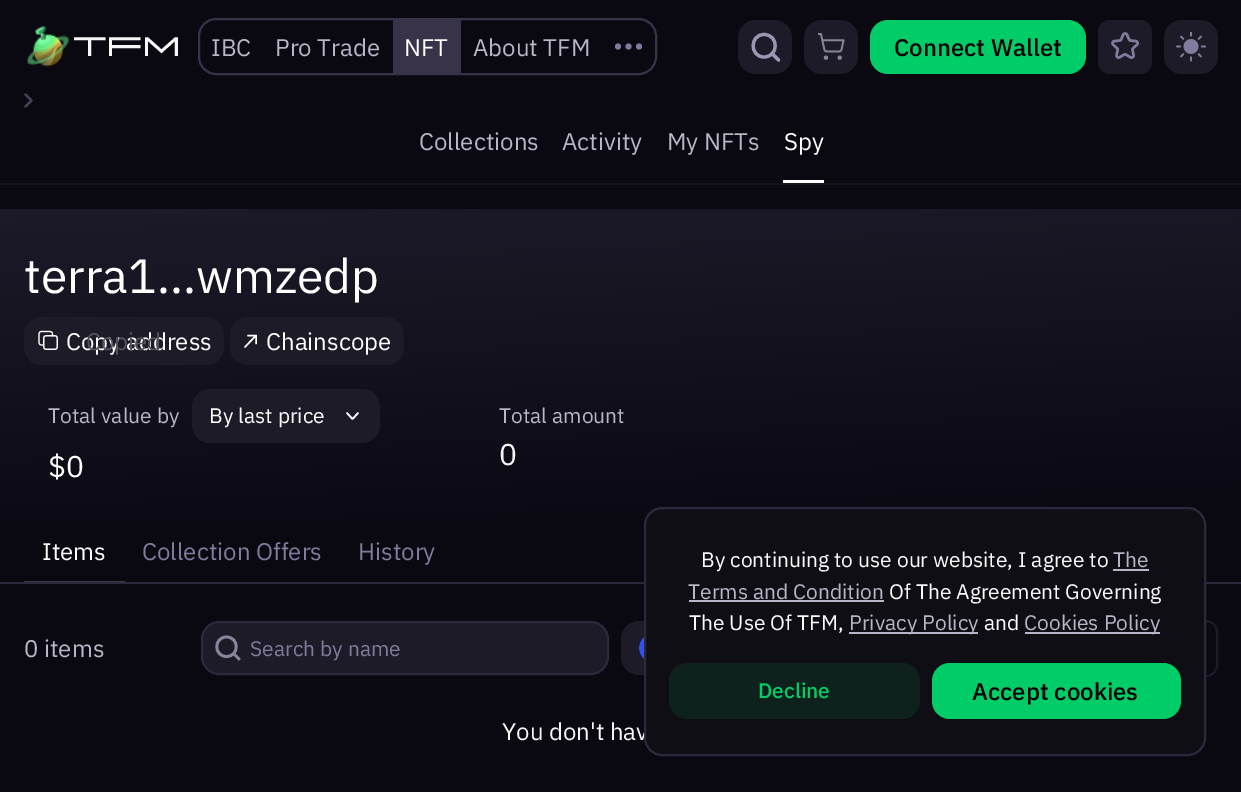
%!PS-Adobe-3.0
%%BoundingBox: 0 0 1241 792
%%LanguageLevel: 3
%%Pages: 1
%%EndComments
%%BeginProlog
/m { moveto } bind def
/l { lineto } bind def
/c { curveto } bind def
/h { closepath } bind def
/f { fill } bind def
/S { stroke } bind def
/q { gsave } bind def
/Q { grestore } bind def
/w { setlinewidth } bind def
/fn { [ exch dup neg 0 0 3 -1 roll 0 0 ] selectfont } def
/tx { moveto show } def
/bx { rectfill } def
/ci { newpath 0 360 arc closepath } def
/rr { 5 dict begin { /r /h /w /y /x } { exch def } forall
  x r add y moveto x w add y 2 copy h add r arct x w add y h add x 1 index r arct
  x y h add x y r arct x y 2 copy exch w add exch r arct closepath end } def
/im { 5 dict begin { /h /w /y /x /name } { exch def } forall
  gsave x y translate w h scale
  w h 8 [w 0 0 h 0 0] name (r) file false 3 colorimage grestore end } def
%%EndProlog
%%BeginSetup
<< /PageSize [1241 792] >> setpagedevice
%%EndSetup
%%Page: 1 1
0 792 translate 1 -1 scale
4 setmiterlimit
0.039 0.031 0.067 setrgbcolor
0 0 1241 792 bx
(image0.raw) 26 26 44 41 im
/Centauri-Regular 27 fn
0.969 setgray
(TFM) 72 56 tx
0.22 0.2 0.282 setrgbcolor
2 w
199 19 457 55 17 rr S
/IBMPlexSans-Regular 24 fn
0.729 0.714 0.784 setrgbcolor
(IBC) 211 56 tx
(Pro Trade) 275 56 tx
0.22 0.2 0.282 setrgbcolor
393 20 68 53 bx
1 setgray
(NFT) 404 56 tx
0.729 0.714 0.784 setrgbcolor
(About TFM) 473 56 tx
0.506 0.482 0.616 setrgbcolor
618 46.5 3 ci f
628.5 46.5 3 ci f
639 46.5 3 ci f
0.114 0.106 0.153 setrgbcolor
738 20 54 54 18 rr f
0.608 0.588 0.706 setrgbcolor
3.2 w
1 setlinecap
1 setlinejoin
764 57 m 779 57 779 34.5 764 34.5 c 749.5 34.5 749.5 57 764 57 c h 772 53.5 m 778.5 60 l S
0.114 0.106 0.153 setrgbcolor
804 20 54 54 18 rr f
(image1.raw) 818 33 27 27 im
0 0.8 0.408 setrgbcolor
870 20 216 54 18 rr f
/IBMPlexSans-Medium 24 fn
0 setgray
(Connect Wallet) 894 56 tx
0.114 0.106 0.153 setrgbcolor
1098 20 54 54 12 rr f
(image2.raw) 1111 32 28 27 im
1164 20 54 54 18 rr f
(image3.raw) 1176 32 30 30 im
0.082 0.078 0.102 setrgbcolor
0 183 1241 2 bx
0.275 0.255 0.345 setrgbcolor
2.2 w
25.5 94.5 m 31.5 100.5 l 25.5 106.5 l S
/IBMPlexSans-Regular 24 fn
0.729 0.714 0.784 setrgbcolor
(Collections) 419 150 tx
(Activity) 562 150 tx
(My NFTs) 667 150 tx
1 setgray
783 180 41 3 bx
(Spy) 784 150 tx
q 0 209 m 1241 209 l 1241 521 l 0 521 l h clip newpath
<< /ShadingType 2 /ColorSpace /DeviceRGB /Coords [613 182 629 547] /Extend [true true] /Function << /FunctionType 3 /Domain [0 1] /Functions [<< /FunctionType 2 /Domain [0 1] /C0 [0.11 0.102 0.157] /C1 [0.11 0.102 0.157] /N 1 >> << /FunctionType 2 /Domain [0 1] /C0 [0.11 0.102 0.157] /C1 [0.039 0.031 0.067] /N 1 >> << /FunctionType 2 /Domain [0 1] /C0 [0.039 0.031 0.067] /C1 [0.039 0.031 0.067] /N 1 >>] /Bounds [0.02 0.98] /Encode [0 1 0 1 0 1] >> >> shfill Q
/IBMPlexSans-Regular 48 fn
(terra1...wmzedp) 24 293 tx
0.114 0.106 0.153 setrgbcolor
24 317 200 48 18 rr f
(image4.raw) 38 330 20 20 im
/IBMPlexSans-Regular 24 fn
1 setgray
(Copy address) 66 350 tx
0.325 0.322 0.357 setrgbcolor
(Сopied) 86 350 tx
0.114 0.106 0.153 setrgbcolor
230 317 174 48 18 rr f
1 setgray
1.5 w
245 347 m 256 335.5 l 256 335.5 m 256 343.5 l 256 335.5 m 248 335.5 l S
(Chainscope) 266 350 tx
/IBMPlexSans-Regular 21 fn
0.729 0.714 0.784 setrgbcolor
(Total value by) 48 423 tx
0.114 0.106 0.153 setrgbcolor
192 389 188 54 18 rr f
1 setgray
(By last price) 209 423 tx
0.969 setgray
1.7 w
358 413 m 352.5 419 l 347 413 l S
/IBMPlexSans-Regular 30 fn
1 setgray
($0) 48 477 tx
/IBMPlexSans-Regular 21 fn
0.729 0.714 0.784 setrgbcolor
(Total amount) 499 423 tx
/IBMPlexSans-Regular 30 fn
0.969 setgray
(0) 499 465 tx
0.176 0.161 0.239 setrgbcolor
0 582 1241 2 bx
0.239 0.227 0.294 setrgbcolor
24 581 101 1 bx
/IBMPlexSans-Regular 24 fn
1 setgray
(Items) 42 560 tx
0.506 0.482 0.616 setrgbcolor
(Collection Offers) 142 560 tx
(History) 358 560 tx
0.729 0.714 0.784 setrgbcolor
(0 items) 24 657 tx
0.114 0.106 0.153 setrgbcolor
202 622 406 52 17 rr q f Q
0.176 0.161 0.239 setrgbcolor
2 w
0 setlinecap
0 setlinejoin
S
0.529 0.522 0.612 setrgbcolor
2.8 w
1 setlinecap
1 setlinejoin
226.5 656.5 m 239.5 656.5 239.5 637 226.5 637 c 213.5 637 213.5 656.5 226.5 656.5 c h 233.5 653.5 m 239 659 l S
/IBMPlexSans-Regular 21 fn
0.506 0.482 0.616 setrgbcolor
(Search by name) 250 656 tx
0.114 0.106 0.153 setrgbcolor
621 621 240 54 18 rr f
(image5.raw) 639 637 5 22 im
2 w
0 setlinecap
0 setlinejoin
1108 621 109 55 11 rr S
/IBMPlexSans-Regular 24 fn
0.969 setgray
(You don't hav) 502 740 tx
0.059 0.055 0.082 setrgbcolor
645 508 560 247 17 rr q f Q
0.176 0.161 0.239 setrgbcolor
S
/IBMPlexSans-Regular 21 fn
1 setgray
(By continuing to use our website, I agree to) 701 567 tx
0.729 0.714 0.784 setrgbcolor
(The) 1113 567 tx
1113 569 36 2 bx
(Terms and Condition) 688 599 tx
689 600 195 2 bx
1 setgray
(Of The Agreement Governing) 889 599 tx
(The Use Of TFM,) 689 630 tx
0.729 0.714 0.784 setrgbcolor
849 632 129 2 bx
(Privacy Policy) 849 630 tx
1 setgray
(and) 984 630 tx
0.729 0.714 0.784 setrgbcolor
1025 632 135 2 bx
(Cookies Policy) 1024 630 tx
0.055 0.129 0.114 setrgbcolor
669 663 251 56 18 rr f
/IBMPlexSans-Medium 21 fn
0 0.8 0.408 setrgbcolor
(Decline) 758 698 tx
932 663 249 56 18 rr f
/IBMPlexSans-Medium 24 fn
0 setgray
(Accept cookies) 972 700 tx
showpage
%%EOF
